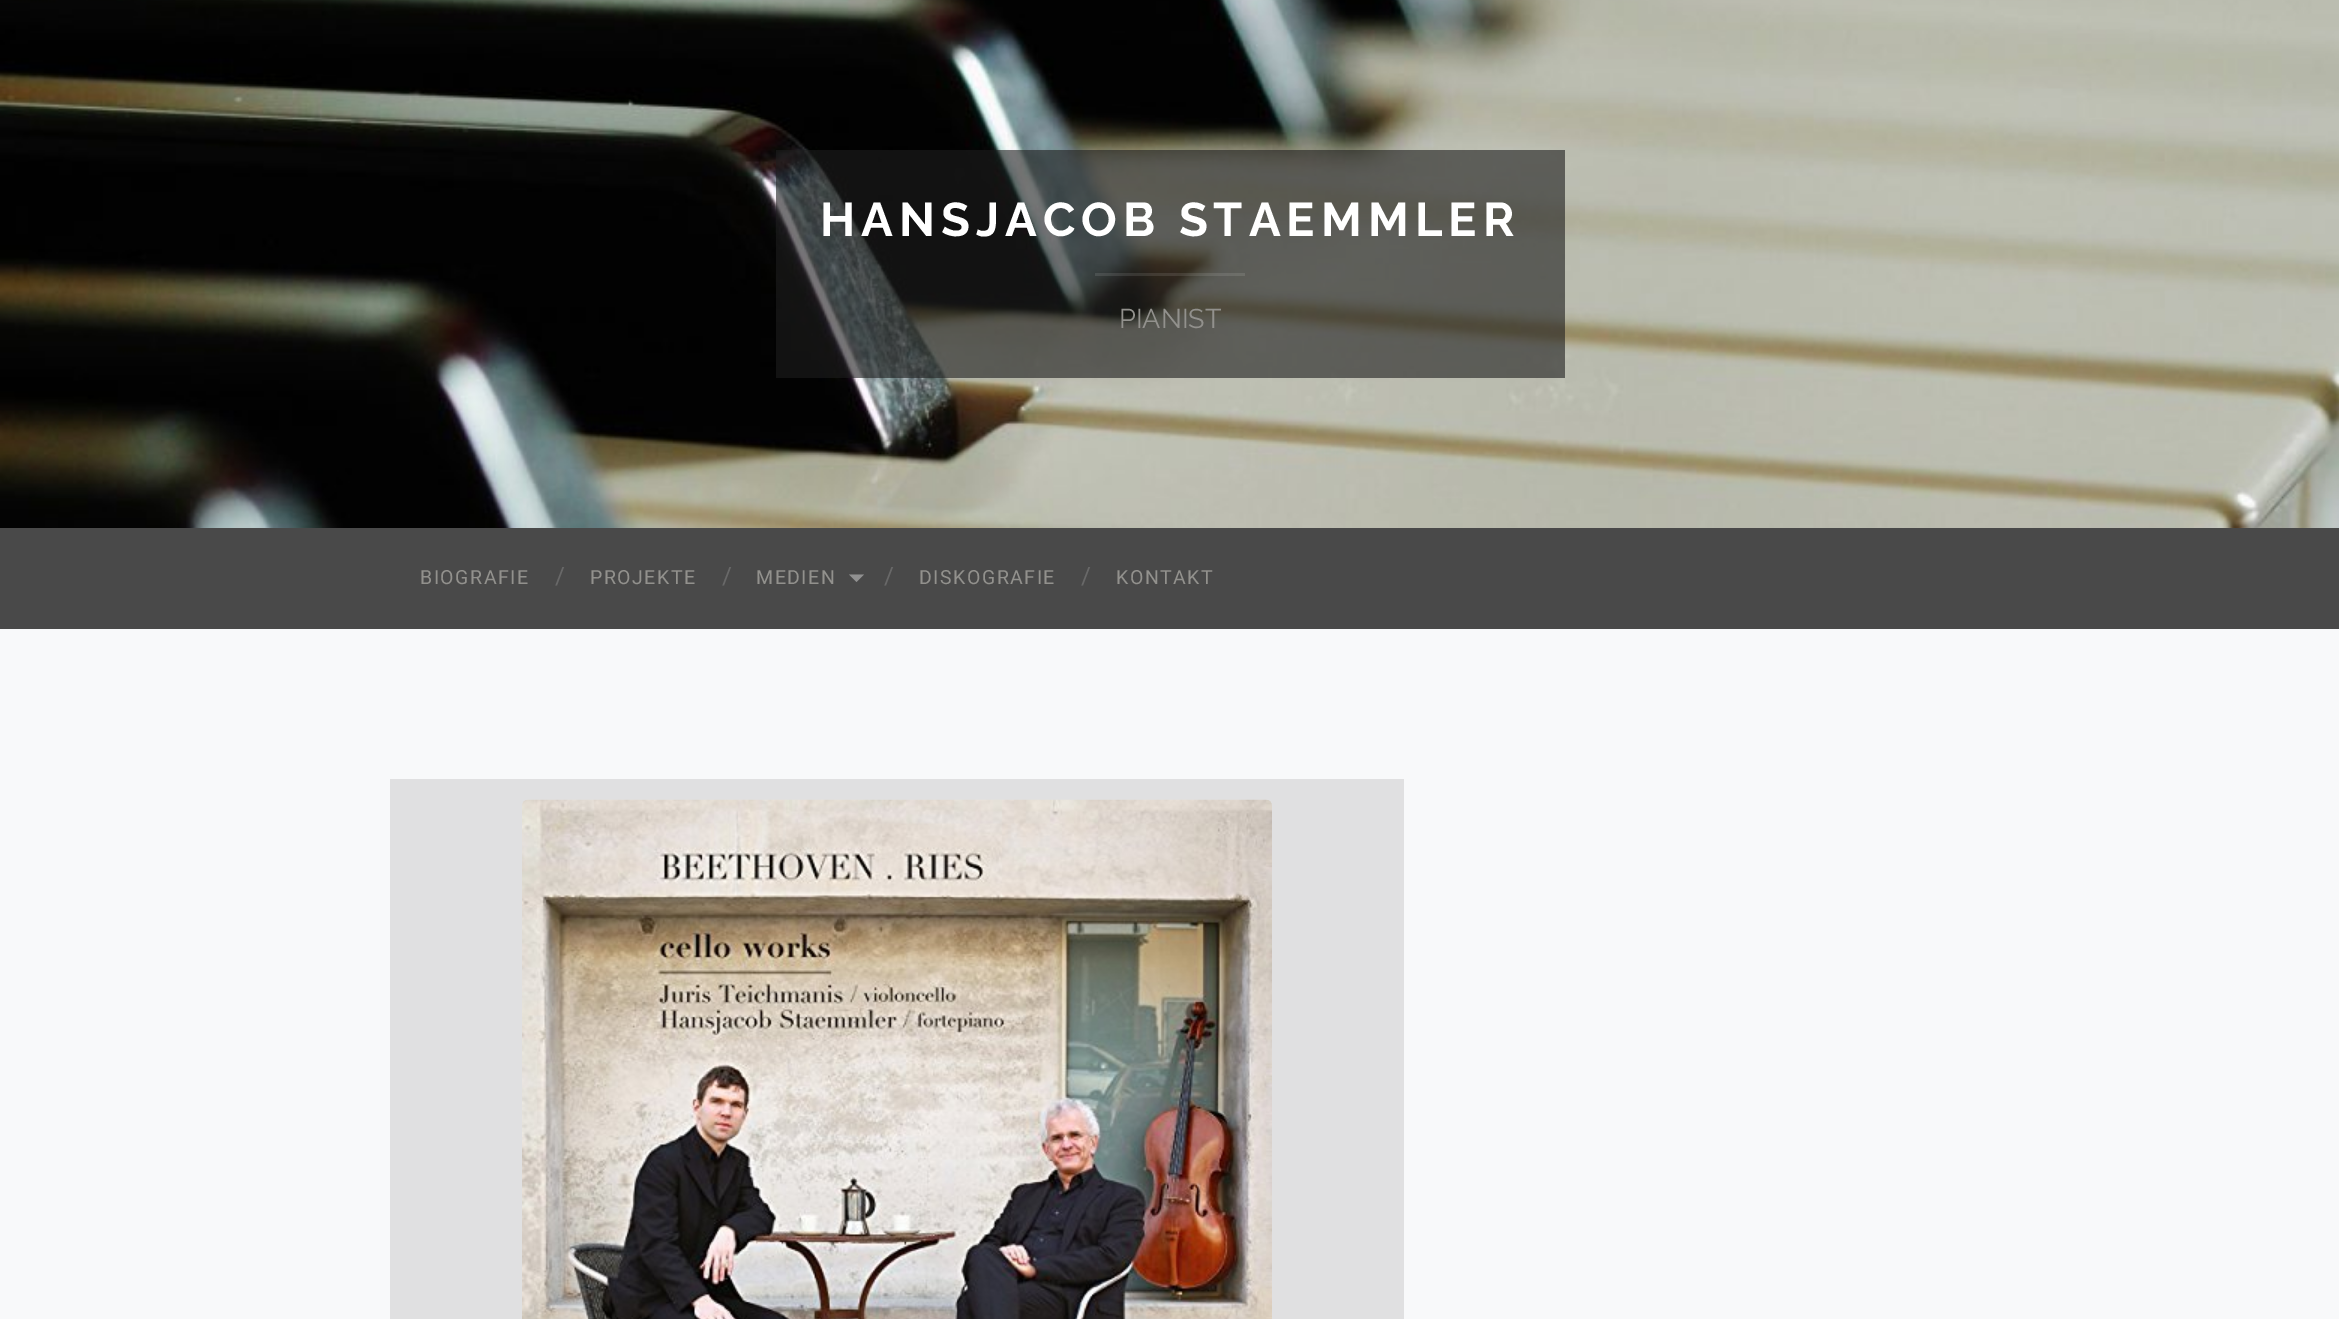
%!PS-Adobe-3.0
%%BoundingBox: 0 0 2339 1319
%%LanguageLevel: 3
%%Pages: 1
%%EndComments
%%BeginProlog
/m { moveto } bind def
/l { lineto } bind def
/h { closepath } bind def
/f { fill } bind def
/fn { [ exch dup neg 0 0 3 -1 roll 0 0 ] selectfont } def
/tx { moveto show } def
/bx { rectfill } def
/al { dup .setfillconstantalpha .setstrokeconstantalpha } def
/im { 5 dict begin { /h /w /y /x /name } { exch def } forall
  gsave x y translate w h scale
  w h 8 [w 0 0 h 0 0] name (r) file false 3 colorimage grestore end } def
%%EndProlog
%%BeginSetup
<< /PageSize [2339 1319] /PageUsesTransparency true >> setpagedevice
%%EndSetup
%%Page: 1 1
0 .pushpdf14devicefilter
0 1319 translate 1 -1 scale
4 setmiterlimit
0.973 0.976 0.98 setrgbcolor
0 0 2339 1319 bx
(image0.raw) 0 0 2339 528 im
0.6 al
0.114 setgray
776 150 789 228 bx
/Raleway-Bold 47.25 fn
1 al
1 setgray
820 236 m 6 0 (HANSJACOB STAEMMLER) ashow
0.1 al
1095 273 150 3 bx
/Raleway-Regular 27 fn
1 al
0.573 0.569 0.553 setrgbcolor
(PIANIST) 1119 328 tx
0.286 setgray
0 528 2339 101 bx
/Roboto-Regular 19.5 fn
0.573 0.569 0.553 setrgbcolor
420 584 m 1.5 0 (BIOGRAFIE) ashow
/Roboto-Regular 24 fn
0.408 setgray
(/) 555 584 tx
/Roboto-Regular 19.5 fn
0.573 0.569 0.553 setrgbcolor
590 584 m 1.5 0 (PROJEKTE) ashow
/Roboto-Regular 24 fn
0.408 setgray
(/) 722 584 tx
/Roboto-Regular 19.5 fn
0.573 0.569 0.553 setrgbcolor
756 584 m 1.5 0 (MEDIEN) ashow
0.569 setgray
849 574.5 m 864 574.5 l 856.5 582 l h f
/Roboto-Regular 24 fn
0.408 setgray
(/) 884 584 tx
/Roboto-Regular 19.5 fn
0.573 0.569 0.553 setrgbcolor
919 584 m 1.5 0 (DISKOGRAFIE) ashow
/Roboto-Regular 24 fn
0.408 setgray
(/) 1081 584 tx
/Roboto-Regular 19.5 fn
0.573 0.569 0.553 setrgbcolor
1116 584 m 1.5 0 (KONTAKT) ashow
0.878 0.878 0.882 setrgbcolor
390 779 1014 540 bx
(image1.raw) 522 799 750 520 im
.poppdf14devicefilter showpage
%%EOF
